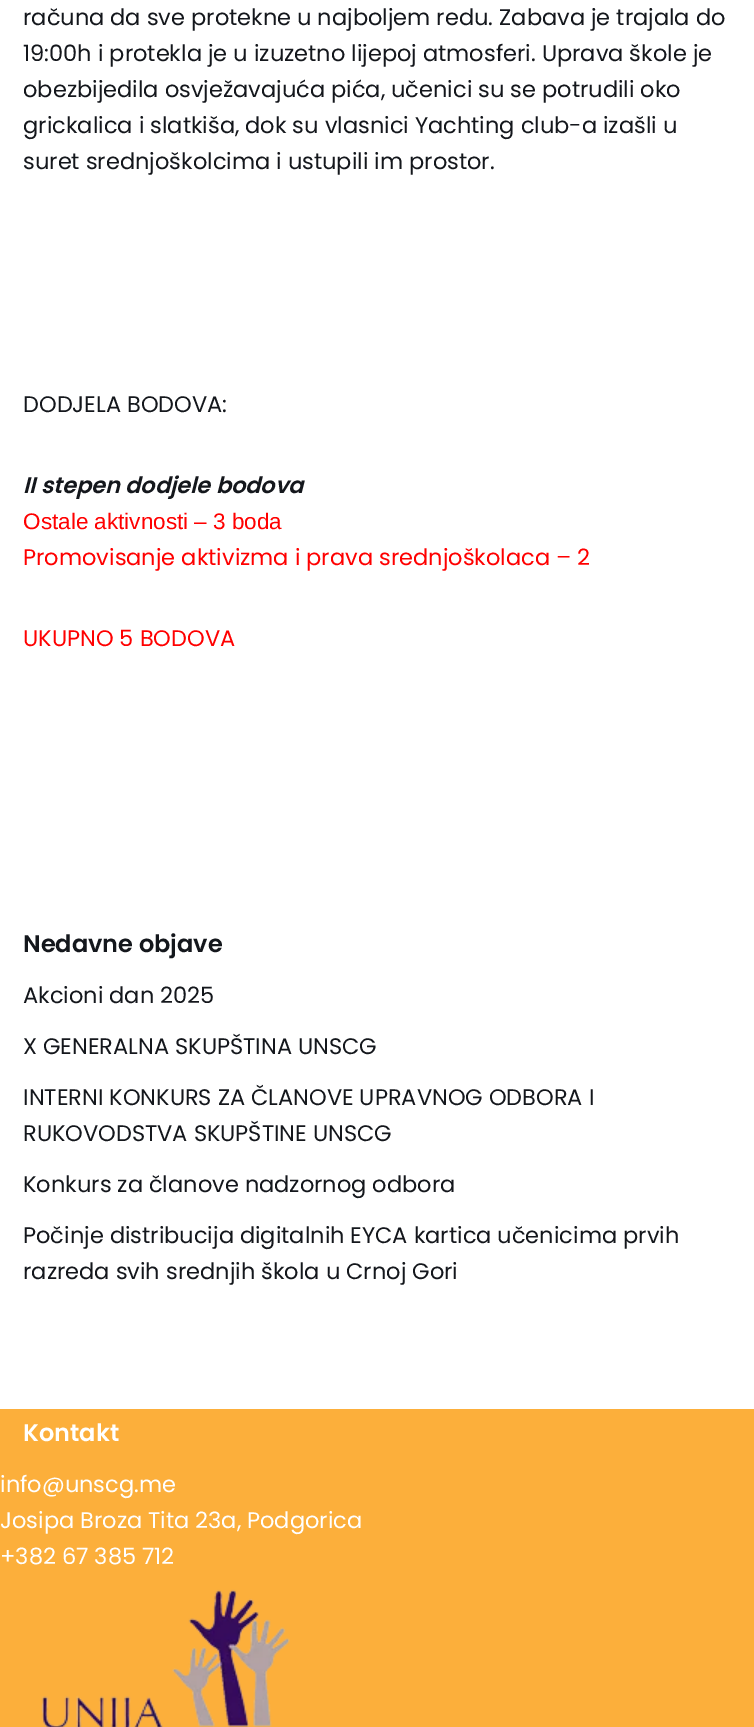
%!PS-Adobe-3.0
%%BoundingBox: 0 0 754 1727
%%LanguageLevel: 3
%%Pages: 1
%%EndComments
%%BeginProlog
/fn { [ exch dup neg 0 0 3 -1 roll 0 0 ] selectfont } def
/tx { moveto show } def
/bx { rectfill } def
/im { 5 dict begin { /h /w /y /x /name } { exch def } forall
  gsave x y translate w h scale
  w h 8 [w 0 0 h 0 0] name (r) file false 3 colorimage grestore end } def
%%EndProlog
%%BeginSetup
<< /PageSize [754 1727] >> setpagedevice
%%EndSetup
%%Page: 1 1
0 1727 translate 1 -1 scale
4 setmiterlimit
1 setgray
0 0 754 1727 bx
/Poppins-Regular 22.5 fn
0.078 0.09 0.11 setrgbcolor
(računa da sve protekne u najboljem redu. Zabava je trajala do) 23 25 tx
(19:00h i protekla je u izuzetno lijepoj atmosferi. Uprava škole je) 23 61 tx
(obezbijedila osvježavajuća pića, učenici su se potrudili oko) 23 97 tx
(grickalica i slatkiša, dok su vlasnici Yachting club-a izašli u) 23 133 tx
(suret srednjoškolcima i ustupili im prostor.) 23 169 tx
(DODJELA BODOVA:) 23 412 tx
/Poppins-SemiBoldItalic 22.5 fn
(II stepen dodjele bodova) 23 493 tx
/LiberationSans-Regular 22.5 fn
1 0 0 setrgbcolor
(Ostale aktivnosti – 3 boda) 23 529 tx
/Poppins-Regular 22.5 fn
(Promovisanje aktivizma i prava srednjoškolaca – 2) 23 565 tx
(UKUPNO 5 BODOVA) 23 646 tx
/Poppins-SemiBold 24 fn
0.078 0.09 0.11 setrgbcolor
(Nedavne objave) 23 952 tx
/Poppins-Regular 22.5 fn
(Akcioni dan 2025) 23 1003 tx
(X GENERALNA SKUPŠTINA UNSCG) 23 1054 tx
(INTERNI KONKURS ZA ČLANOVE UPRAVNOG ODBORA I) 23 1105 tx
(RUKOVODSTVA SKUPŠTINE UNSCG) 23 1141 tx
(Konkurs za članove nadzornog odbora) 23 1192 tx
(Počinje distribucija digitalnih EYCA kartica učenicima prvih) 23 1243 tx
(razreda svih srednjih škola u Crnoj Gori) 23 1279 tx
0.988 0.686 0.231 setrgbcolor
0 1409 754 318 bx
/Poppins-SemiBold 24 fn
1 setgray
(Kontakt) 23 1441 tx
/Poppins-Regular 22.5 fn
(info@unscg.me) 0 1492 tx
(Josipa Broza Tita 23a, Podgorica) 0 1528 tx
(+382 67 385 712) 0 1564 tx
(image0.raw) 41 1589 249 138 im
showpage
%%EOF
